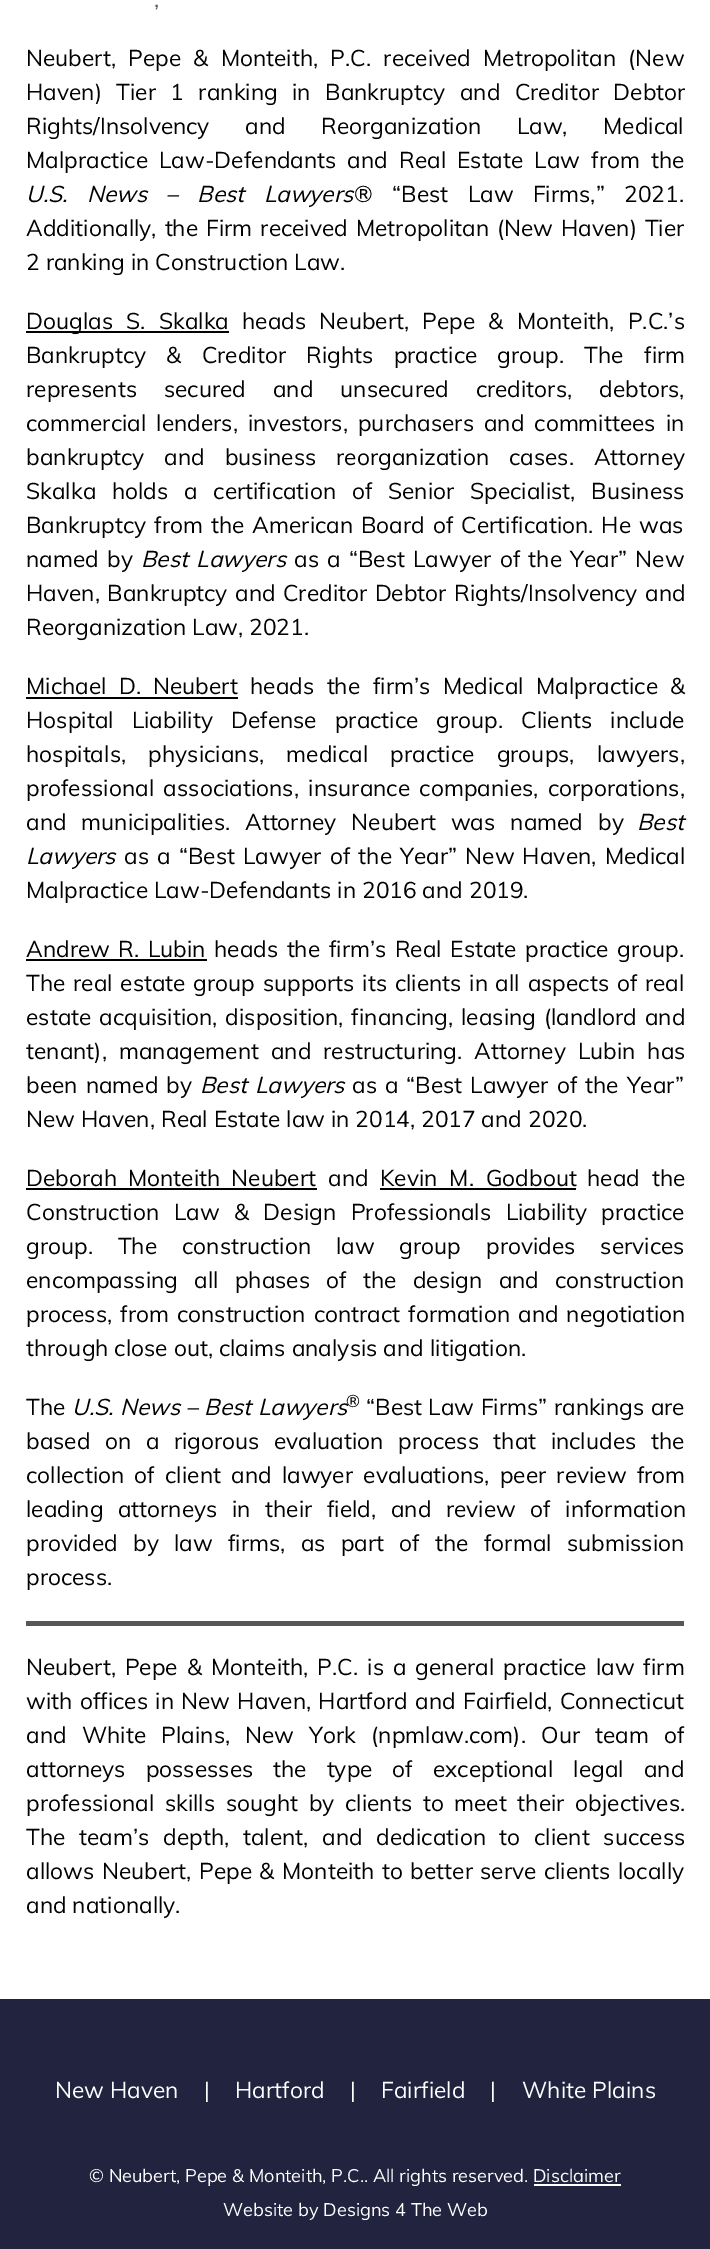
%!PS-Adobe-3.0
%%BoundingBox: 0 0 710 2249
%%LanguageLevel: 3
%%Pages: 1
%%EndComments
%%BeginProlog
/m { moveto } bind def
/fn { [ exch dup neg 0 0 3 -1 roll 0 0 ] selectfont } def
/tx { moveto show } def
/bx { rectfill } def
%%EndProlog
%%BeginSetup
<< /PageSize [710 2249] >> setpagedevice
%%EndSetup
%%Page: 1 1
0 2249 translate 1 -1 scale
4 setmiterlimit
1 setgray
0 0 710 2249 bx
/Muli-Regular 22.7 fn
0.341 setgray
(,) 154 7 tx
0 setgray
26 66 m 6.25 0 32 (Neubert, Pepe & Monteith, P.C. received Metropolitan \(New) widthshow
26 100 m 8.5 0 32 (Haven\) Tier 1 ranking in Bankruptcy and Creditor Debtor) widthshow
26 134 m 29.5 0 32 (Rights/Insolvency and Reorganization Law, Medical) widthshow
26 168 m 5 0 32 (Malpractice Law-Defendants and Real Estate Law from the) widthshow
/Muli-Italic 22.7 fn
26 202 m 13.5 0 32 (U.S. News – Best Lawyers) widthshow
/Muli-Regular 22.7 fn
354 202 m 13.5 0 32 (® “Best Law Firms,” 2021.) widthshow
26 236 m 2 0 32 (Additionally, the Firm received Metropolitan \(New Haven\) Tier) widthshow
(2 ranking in Construction Law.) 26 270 tx
26 331 203 2 bx
26 329 m 7.25 0 32 (Douglas S. Skalka) widthshow
242 329 m 7.25 0 32 (heads Neubert, Pepe & Monteith, P.C.’s) widthshow
26 363 m 14.25 0 32 (Bankruptcy & Creditor Rights practice group. The firm) widthshow
26 397 m 21 0 32 (represents secured and unsecured creditors, debtors,) widthshow
26 431 m 4 0 32 (commercial lenders, investors, purchasers and committees in) widthshow
26 465 m 14 0 32 (bankruptcy and business reorganization cases. Attorney) widthshow
26 499 m 9.75 0 32 (Skalka holds a certification of Senior Specialist, Business) widthshow
26 533 m 2 0 32 (Bankruptcy from the American Board of Certification. He was) widthshow
26 567 m 2.25 0 32 (named by) widthshow
/Muli-Italic 22.7 fn
141 567 m 2.25 0 32 (Best Lawyers) widthshow
/Muli-Regular 22.7 fn
294 567 m 2.25 0 32 (as a “Best Lawyer of the Year” New) widthshow
26 601 m 1.5 0 32 (Haven, Bankruptcy and Creditor Debtor Rights/Insolvency and) widthshow
(Reorganization Law, 2021.) 26 635 tx
26 694 m 6.25 0 32 (Michael D. Neubert) widthshow
26 697 212 2 bx
250 694 m 6.5 0 32 (heads the firm’s Medical Malpractice &) widthshow
26 728 m 12 0 32 (Hospital Liability Defense practice group. Clients include) widthshow
26 762 m 16.5 0 32 (hospitals, physicians, medical practice groups, lawyers,) widthshow
26 796 m 3.5 0 32 (professional associations, insurance companies, corporations,) widthshow
26 830 m 9 0 32 (and municipalities. Attorney Neubert was named by) widthshow
/Muli-Italic 22.7 fn
(Best) 637 830 tx
(Lawyers) 26 864 tx
/Muli-Regular 22.7 fn
124 864 m 2.25 0 32 (as a “Best Lawyer of the Year” New Haven, Medical) widthshow
(Malpractice Law-Defendants in 2016 and 2019.) 26 898 tx
26 957 m 2.5 0 32 (Andrew R. Lubin) widthshow
26 959 181 2 bx
214 957 m 2.5 0 32 (heads the firm’s Real Estate practice group.) widthshow
26 991 m 1.75 0 32 (The real estate group supports its clients in all aspects of real) widthshow
26 1025 m 1.75 0 32 (estate acquisition, disposition, financing, leasing \(landlord and) widthshow
26 1059 m 6 0 32 (tenant\), management and restructuring. Attorney Lubin has) widthshow
26 1093 m 2 0 32 (been named by) widthshow
/Muli-Italic 22.7 fn
200 1093 m 2 0 32 (Best Lawyers) widthshow
/Muli-Regular 22.7 fn
352 1093 m 2 0 32 (as a “Best Lawyer of the Year”) widthshow
(New Haven, Real Estate law in 2014, 2017 and 2020.) 26 1127 tx
26 1186 m 5 0 32 (Deborah Monteith Neubert) widthshow
26 1188 291 2 bx
(and) 328 1186 tx
380 1186 m 6 0 32 (Kevin M. Godbout) widthshow
380 1188 196 2 bx
587 1186 m 6 0 32 (head the) widthshow
26 1220 m 8.5 0 32 (Construction Law & Design Professionals Liability practice) widthshow
26 1254 m 19 0 32 (group. The construction law group provides services) widthshow
26 1288 m 10.25 0 32 (encompassing all phases of the design and construction) widthshow
26 1322 m 2 0 32 (process, from construction contract formation and negotiation) widthshow
(through close out, claims analysis and litigation.) 26 1356 tx
(The) 26 1415 tx
/Muli-Italic 22.7 fn
72 1415 m 0.5 0 32 (U.S. News – Best Lawyers) widthshow
/Muli-Regular 17 fn
(®) 346 1407 tx
/Muli-Regular 22.7 fn
366 1415 m 0.5 0 32 (“Best Law Firms” rankings are) widthshow
26 1449 m 8.5 0 32 (based on a rigorous evaluation process that includes the) widthshow
26 1483 m 4.25 0 32 (collection of client and lawyer evaluations, peer review from) widthshow
26 1517 m 8.5 0 32 (leading attorneys in their field, and review of information) widthshow
26 1551 m 9.25 0 32 (provided by law firms, as part of the formal submission) widthshow
(process.) 26 1585 tx
0.341 setgray
26 1621 658 5 bx
0 setgray
26 1675 m 3 0 32 (Neubert, Pepe & Monteith, P.C. is a general practice law firm) widthshow
26 1709 m 1.25 0 32 (with offices in New Haven, Hartford and Fairfield, Connecticut) widthshow
26 1743 m 9.25 0 32 (and White Plains, New York \(npmlaw.com\). Our team of) widthshow
26 1777 m 14 0 32 (attorneys possesses the type of exceptional legal and) widthshow
26 1811 m 4.75 0 32 (professional skills sought by clients to meet their objectives.) widthshow
26 1845 m 7.75 0 32 (The team’s depth, talent, and dedication to client success) widthshow
26 1879 m 1.5 0 32 (allows Neubert, Pepe & Monteith to better serve clients locally) widthshow
(and nationally.) 26 1913 tx
0.133 0.137 0.247 setrgbcolor
0 1999 710 250 bx
1 setgray
(New Haven) 55 2098 tx
(|) 204 2098 tx
(Hartford) 235 2098 tx
(|) 350 2098 tx
(Fairfield) 381 2098 tx
(|) 490 2098 tx
(White Plains) 522 2098 tx
/Muli-Regular 18.1 fn
(© Neubert, Pepe & Monteith, P.C.. All rights reserved. Disclaimer) 89 2182 tx
534 2184 87 2 bx
(Website by Designs 4 The Web) 223 2216 tx
showpage
%%EOF
